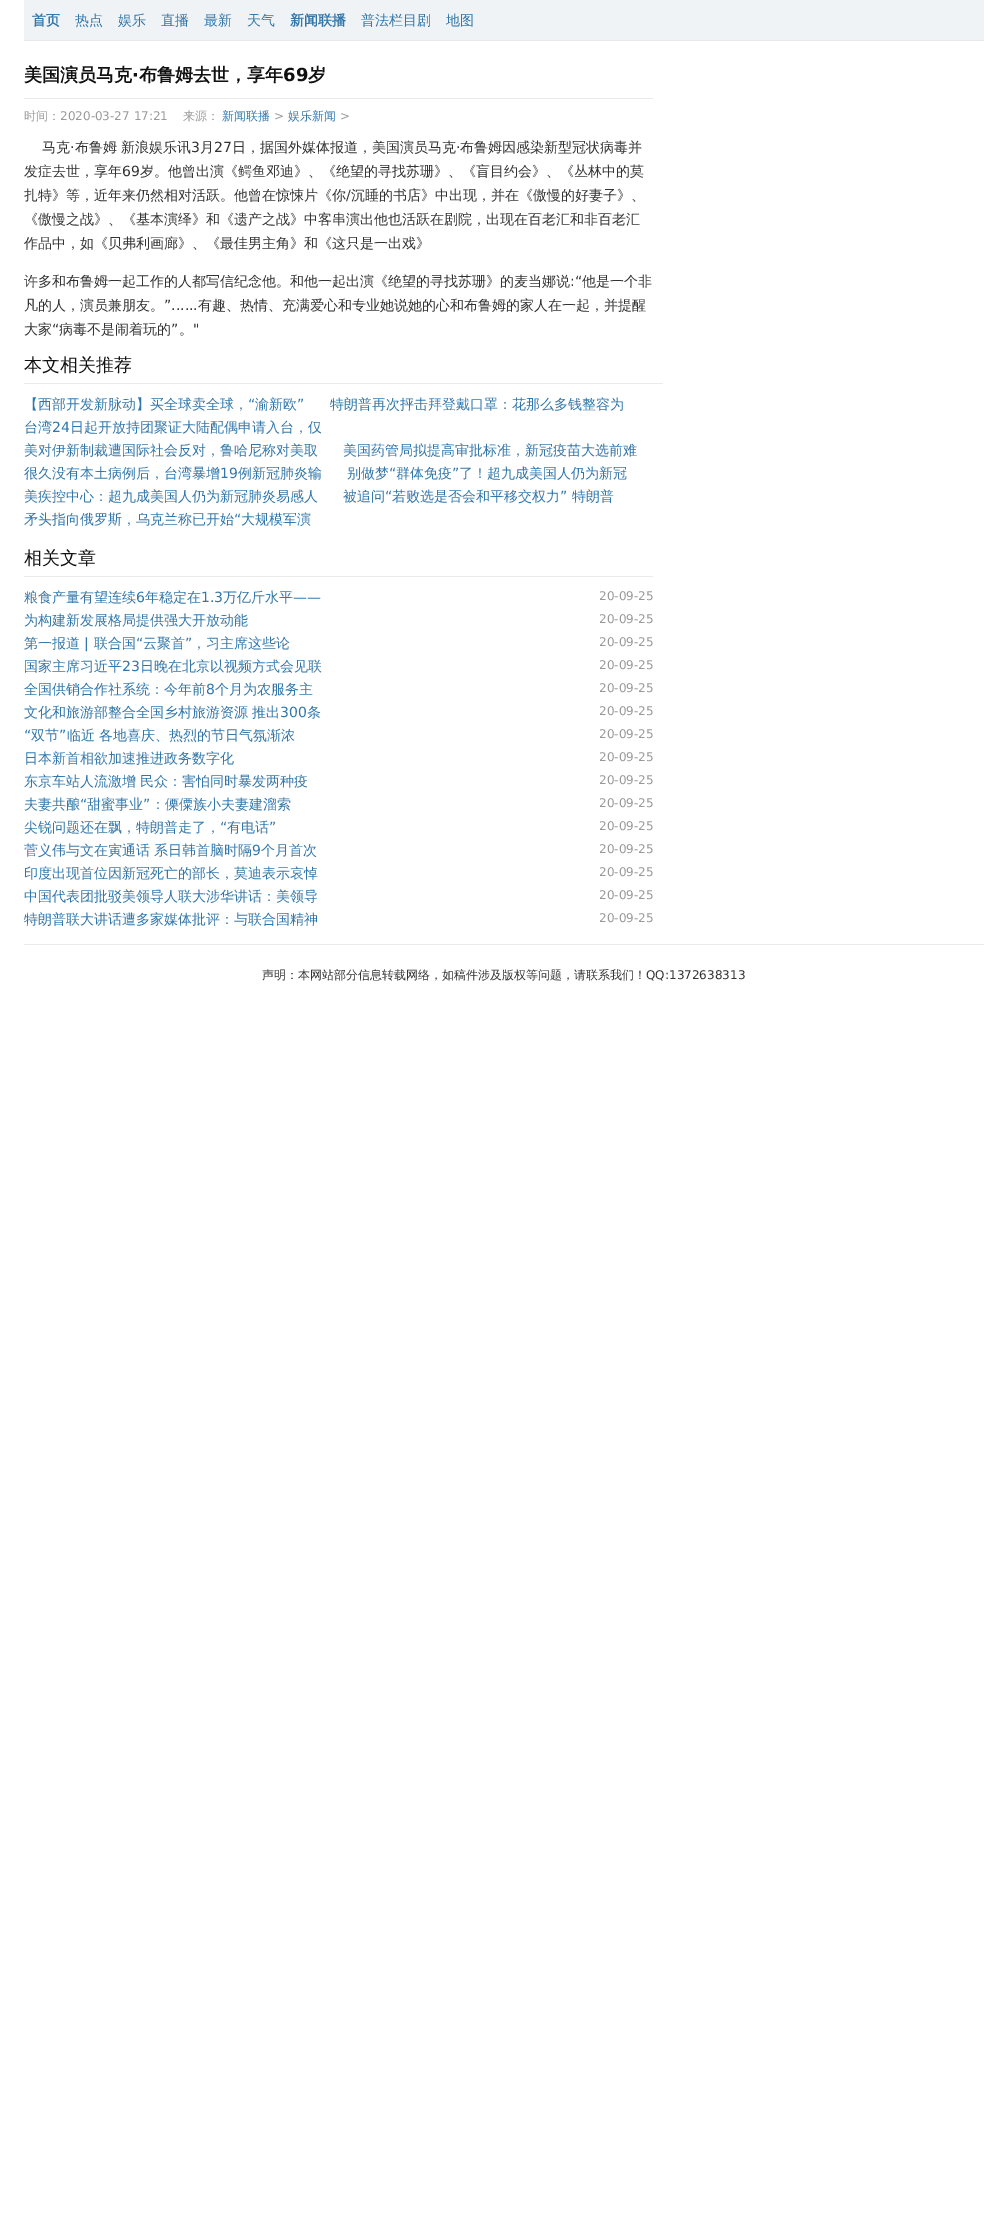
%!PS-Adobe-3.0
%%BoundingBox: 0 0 1008 2217
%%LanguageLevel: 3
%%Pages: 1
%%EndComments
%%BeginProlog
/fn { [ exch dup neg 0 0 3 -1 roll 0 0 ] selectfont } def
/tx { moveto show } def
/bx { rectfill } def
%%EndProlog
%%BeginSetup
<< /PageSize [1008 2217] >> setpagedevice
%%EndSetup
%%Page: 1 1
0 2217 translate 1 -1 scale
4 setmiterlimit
1 setgray
0 0 1008 2217 bx
0.941 0.953 0.961 setrgbcolor
24 0 960 40 bx
0.898 0.922 0.894 setrgbcolor
24 40 960 1 bx
/WenQuanYiZenHei-Bold 14 fn
0.2 0.467 0.667 setrgbcolor
(首页) 32 25 tx
/WenQuanYiZenHei-Medium 14 fn
(热点) 75 25 tx
(娱乐) 118 25 tx
(直播) 161 25 tx
(最新) 204 25 tx
(天气) 247 25 tx
/WenQuanYiZenHei-Bold 14 fn
(新闻联播) 290 25 tx
/WenQuanYiZenHei-Medium 14 fn
(普法栏目剧) 361 25 tx
(地图) 446 25 tx
0.918 setgray
24 98 629 1 bx
/WenQuanYiZenHei-Bold 18 fn
0.067 setgray
(美国演员马克) 24 81 tx
/DejaVuSans-Bold 18 fn
(·) 132 81 tx
/WenQuanYiZenHei-Bold 18 fn
(布鲁姆去世，享年) 139 81 tx
/DejaVuSans-Bold 18 fn
(69) 283 81 tx
/WenQuanYiZenHei-Bold 18 fn
(岁) 308 81 tx
/WenQuanYiZenHei-Medium 12 fn
0.6 setgray
(时间：) 24 120 tx
/DejaVuSans-Regular 12 fn
(2020-03-27 17:21) 60 120 tx
/WenQuanYiZenHei-Medium 12 fn
(来源：) 183 120 tx
0.2 0.467 0.667 setrgbcolor
(新闻联播) 222 120 tx
/DejaVuSans-Regular 12 fn
0.6 setgray
(>) 274 120 tx
/WenQuanYiZenHei-Medium 12 fn
0.2 0.467 0.667 setrgbcolor
(娱乐新闻) 288 120 tx
/DejaVuSans-Regular 12 fn
0.6 setgray
(>) 340 120 tx
/WenQuanYiZenHei-Medium 14 fn
0.2 setgray
(马克) 42 152 tx
/DejaVuSans-Regular 14 fn
(·) 70 152 tx
/WenQuanYiZenHei-Medium 14 fn
(布鲁姆 新浪娱乐讯) 75 152 tx
/DejaVuSans-Regular 14 fn
(3) 191 152 tx
/WenQuanYiZenHei-Medium 14 fn
(月) 200 152 tx
/DejaVuSans-Regular 14 fn
(27) 214 152 tx
/WenQuanYiZenHei-Medium 14 fn
(日，据国外媒体报道，美国演员马克 布鲁姆因感染新型冠状病毒并) 232 152 tx
/DejaVuSans-Regular 14 fn
(·) 456 152 tx
/WenQuanYiZenHei-Medium 14 fn
(发症去世，享年) 24 176 tx
/DejaVuSans-Regular 14 fn
(69) 122 176 tx
/WenQuanYiZenHei-Medium 14 fn
(岁。他曾出演《鳄鱼邓迪》、《绝望的寻找苏珊》、《盲目约会》、《丛林中的莫) 140 176 tx
(扎特》等，近年来仍然相对活跃。他曾在惊悚片《你) 24 200 tx
/DejaVuSans-Regular 14 fn
(/) 346 200 tx
/WenQuanYiZenHei-Medium 14 fn
(沉睡的书店》中出现，并在《傲慢的好妻子》、) 351 200 tx
(《傲慢之战》、《基本演绎》和《遗产之战》中客串演出他也活跃在剧院，出现在百老汇和非百老汇) 24 224 tx
(作品中，如《贝弗利画廊》、《最佳男主角》和《这只是一出戏》) 24 248 tx
(许多和布鲁姆一起工作的人都写信纪念他。和他一起出演《绝望的寻找苏珊》的麦当娜说) 24 286 tx
/DejaVuSans-Regular 14 fn
(:“) 570 286 tx
/WenQuanYiZenHei-Medium 14 fn
(他是一个非) 582 286 tx
(凡的人，演员兼朋友。) 24 310 tx
/DejaVuSans-Regular 14 fn
(”......) 164 310 tx
/WenQuanYiZenHei-Medium 14 fn
(有趣、热情、充满爱心和专业她说她的心和布鲁姆的家人在一起，并提醒) 198 310 tx
(大家) 24 334 tx
/DejaVuSans-Regular 14 fn
(“) 52 334 tx
/WenQuanYiZenHei-Medium 14 fn
(病毒不是闹着玩的) 59 334 tx
/DejaVuSans-Regular 14 fn
(”) 171 334 tx
(") 193 334 tx
/WenQuanYiZenHei-Medium 14 fn
(。) 179 334 tx
0.918 setgray
24 383 639 1 bx
/WenQuanYiZenHei-Medium 18 fn
0.067 setgray
(本文相关推荐) 24 371 tx
/WenQuanYiZenHei-Medium 14 fn
0.2 0.467 0.667 setrgbcolor
(【西部开发新脉动】买全球卖全球，) 24 409 tx
/DejaVuSans-Regular 14 fn
(“) 248 409 tx
/WenQuanYiZenHei-Medium 14 fn
(渝新欧) 255 409 tx
/DejaVuSans-Regular 14 fn
(”) 297 409 tx
/WenQuanYiZenHei-Medium 14 fn
(特朗普再次抨击拜登戴口罩：花那么多钱整容为) 330 409 tx
(台湾) 24 432 tx
/DejaVuSans-Regular 14 fn
(24) 52 432 tx
/WenQuanYiZenHei-Medium 14 fn
(日起开放持团聚证大陆配偶申请入台，仅) 70 432 tx
(美对伊新制裁遭国际社会反对，鲁哈尼称对美取) 24 455 tx
(美国药管局拟提高审批标准，新冠疫苗大选前难) 343 455 tx
(很久没有本土病例后，台湾暴增) 24 478 tx
/DejaVuSans-Regular 14 fn
(19) 220 478 tx
/WenQuanYiZenHei-Medium 14 fn
(例新冠肺炎输) 238 478 tx
(别做梦) 347 478 tx
/DejaVuSans-Regular 14 fn
(“) 389 478 tx
/WenQuanYiZenHei-Medium 14 fn
(群体免疫) 396 478 tx
/DejaVuSans-Regular 14 fn
(”) 452 478 tx
/WenQuanYiZenHei-Medium 14 fn
(了！超九成美国人仍为新冠) 459 478 tx
(美疾控中心：超九成美国人仍为新冠肺炎易感人) 24 501 tx
(被追问) 343 501 tx
/DejaVuSans-Regular 14 fn
(“) 385 501 tx
/WenQuanYiZenHei-Medium 14 fn
(若败选是否会和平移交权力) 392 501 tx
/DejaVuSans-Regular 14 fn
(”) 560 501 tx
/WenQuanYiZenHei-Medium 14 fn
(特朗普) 572 501 tx
(矛头指向俄罗斯，乌克兰称已开始) 24 524 tx
/DejaVuSans-Regular 14 fn
(“) 234 524 tx
/WenQuanYiZenHei-Medium 14 fn
(大规模军演) 241 524 tx
0.918 setgray
24 576 629 1 bx
/WenQuanYiZenHei-Medium 18 fn
0.067 setgray
(相关文章) 24 564 tx
/WenQuanYiZenHei-Medium 14 fn
0.2 0.467 0.667 setrgbcolor
(粮食产量有望连续) 24 602 tx
/DejaVuSans-Regular 14 fn
(6) 136 602 tx
/WenQuanYiZenHei-Medium 14 fn
(年稳定在) 145 602 tx
/DejaVuSans-Regular 14 fn
(1.3) 201 602 tx
/WenQuanYiZenHei-Medium 14 fn
(万亿斤水平) 223 602 tx
/DejaVuSans-Regular 14 fn
(——) 293 602 tx
/DejaVuSans-Regular 12 fn
0.6 setgray
(20-09-25) 599 600 tx
/WenQuanYiZenHei-Medium 14 fn
0.2 0.467 0.667 setrgbcolor
(为构建新发展格局提供强大开放动能) 24 625 tx
/DejaVuSans-Regular 12 fn
0.6 setgray
(20-09-25) 599 623 tx
/WenQuanYiZenHei-Medium 14 fn
0.2 0.467 0.667 setrgbcolor
(第一报道) 24 648 tx
/DejaVuSans-Regular 14 fn
(|) 84 648 tx
/WenQuanYiZenHei-Medium 14 fn
(联合国) 94 648 tx
/DejaVuSans-Regular 14 fn
(“) 136 648 tx
/WenQuanYiZenHei-Medium 14 fn
(云聚首) 143 648 tx
/DejaVuSans-Regular 14 fn
(”) 185 648 tx
/WenQuanYiZenHei-Medium 14 fn
(，习主席这些论) 192 648 tx
/DejaVuSans-Regular 12 fn
0.6 setgray
(20-09-25) 599 646 tx
/WenQuanYiZenHei-Medium 14 fn
0.2 0.467 0.667 setrgbcolor
(国家主席习近平) 24 671 tx
/DejaVuSans-Regular 14 fn
(23) 122 671 tx
/WenQuanYiZenHei-Medium 14 fn
(日晚在北京以视频方式会见联) 140 671 tx
/DejaVuSans-Regular 12 fn
0.6 setgray
(20-09-25) 599 669 tx
/WenQuanYiZenHei-Medium 14 fn
0.2 0.467 0.667 setrgbcolor
(全国供销合作社系统：今年前) 24 694 tx
/DejaVuSans-Regular 14 fn
(8) 206 694 tx
/WenQuanYiZenHei-Medium 14 fn
(个月为农服务主) 215 694 tx
/DejaVuSans-Regular 12 fn
0.6 setgray
(20-09-25) 599 692 tx
/WenQuanYiZenHei-Medium 14 fn
0.2 0.467 0.667 setrgbcolor
(文化和旅游部整合全国乡村旅游资源 推出) 24 717 tx
/DejaVuSans-Regular 14 fn
(300) 280 717 tx
/WenQuanYiZenHei-Medium 14 fn
(条) 307 717 tx
/DejaVuSans-Regular 12 fn
0.6 setgray
(20-09-25) 599 715 tx
/DejaVuSans-Regular 14 fn
0.2 0.467 0.667 setrgbcolor
(“) 24 740 tx
/WenQuanYiZenHei-Medium 14 fn
(双节) 31 740 tx
/DejaVuSans-Regular 14 fn
(”) 59 740 tx
/WenQuanYiZenHei-Medium 14 fn
(临近 各地喜庆、热烈的节日气氛渐浓) 67 740 tx
/DejaVuSans-Regular 12 fn
0.6 setgray
(20-09-25) 599 738 tx
/WenQuanYiZenHei-Medium 14 fn
0.2 0.467 0.667 setrgbcolor
(日本新首相欲加速推进政务数字化) 24 763 tx
/DejaVuSans-Regular 12 fn
0.6 setgray
(20-09-25) 599 761 tx
/WenQuanYiZenHei-Medium 14 fn
0.2 0.467 0.667 setrgbcolor
(东京车站人流激增 民众：害怕同时暴发两种疫) 24 786 tx
/DejaVuSans-Regular 12 fn
0.6 setgray
(20-09-25) 599 784 tx
/WenQuanYiZenHei-Medium 14 fn
0.2 0.467 0.667 setrgbcolor
(夫妻共酿) 24 809 tx
/DejaVuSans-Regular 14 fn
(“) 80 809 tx
/WenQuanYiZenHei-Medium 14 fn
(甜蜜事业) 87 809 tx
/DejaVuSans-Regular 14 fn
(”) 143 809 tx
/WenQuanYiZenHei-Medium 14 fn
(：傈僳族小夫妻建溜索) 151 809 tx
/DejaVuSans-Regular 12 fn
0.6 setgray
(20-09-25) 599 807 tx
/WenQuanYiZenHei-Medium 14 fn
0.2 0.467 0.667 setrgbcolor
(尖锐问题还在飘，特朗普走了，) 24 832 tx
/DejaVuSans-Regular 14 fn
(“) 220 832 tx
/WenQuanYiZenHei-Medium 14 fn
(有电话) 227 832 tx
/DejaVuSans-Regular 14 fn
(”) 269 832 tx
/DejaVuSans-Regular 12 fn
0.6 setgray
(20-09-25) 599 830 tx
/WenQuanYiZenHei-Medium 14 fn
0.2 0.467 0.667 setrgbcolor
(菅义伟与文在寅通话 系日韩首脑时隔) 24 855 tx
/DejaVuSans-Regular 14 fn
(9) 252 855 tx
/WenQuanYiZenHei-Medium 14 fn
(个月首次) 261 855 tx
/DejaVuSans-Regular 12 fn
0.6 setgray
(20-09-25) 599 853 tx
/WenQuanYiZenHei-Medium 14 fn
0.2 0.467 0.667 setrgbcolor
(印度出现首位因新冠死亡的部长，莫迪表示哀悼) 24 878 tx
/DejaVuSans-Regular 12 fn
0.6 setgray
(20-09-25) 599 876 tx
/WenQuanYiZenHei-Medium 14 fn
0.2 0.467 0.667 setrgbcolor
(中国代表团批驳美领导人联大涉华讲话：美领导) 24 901 tx
/DejaVuSans-Regular 12 fn
0.6 setgray
(20-09-25) 599 899 tx
/WenQuanYiZenHei-Medium 14 fn
0.2 0.467 0.667 setrgbcolor
(特朗普联大讲话遭多家媒体批评：与联合国精神) 24 924 tx
/DejaVuSans-Regular 12 fn
0.6 setgray
(20-09-25) 599 922 tx
0.918 setgray
24 944 960 1 bx
/WenQuanYiZenHei-Medium 12 fn
0.2 setgray
(声明：本网站部分信息转载网络，如稿件涉及版权等问题，请联系我们！) 262 979 tx
/DejaVuSans-Regular 12 fn
(QQ:1372638313) 646 979 tx
showpage
%%EOF
